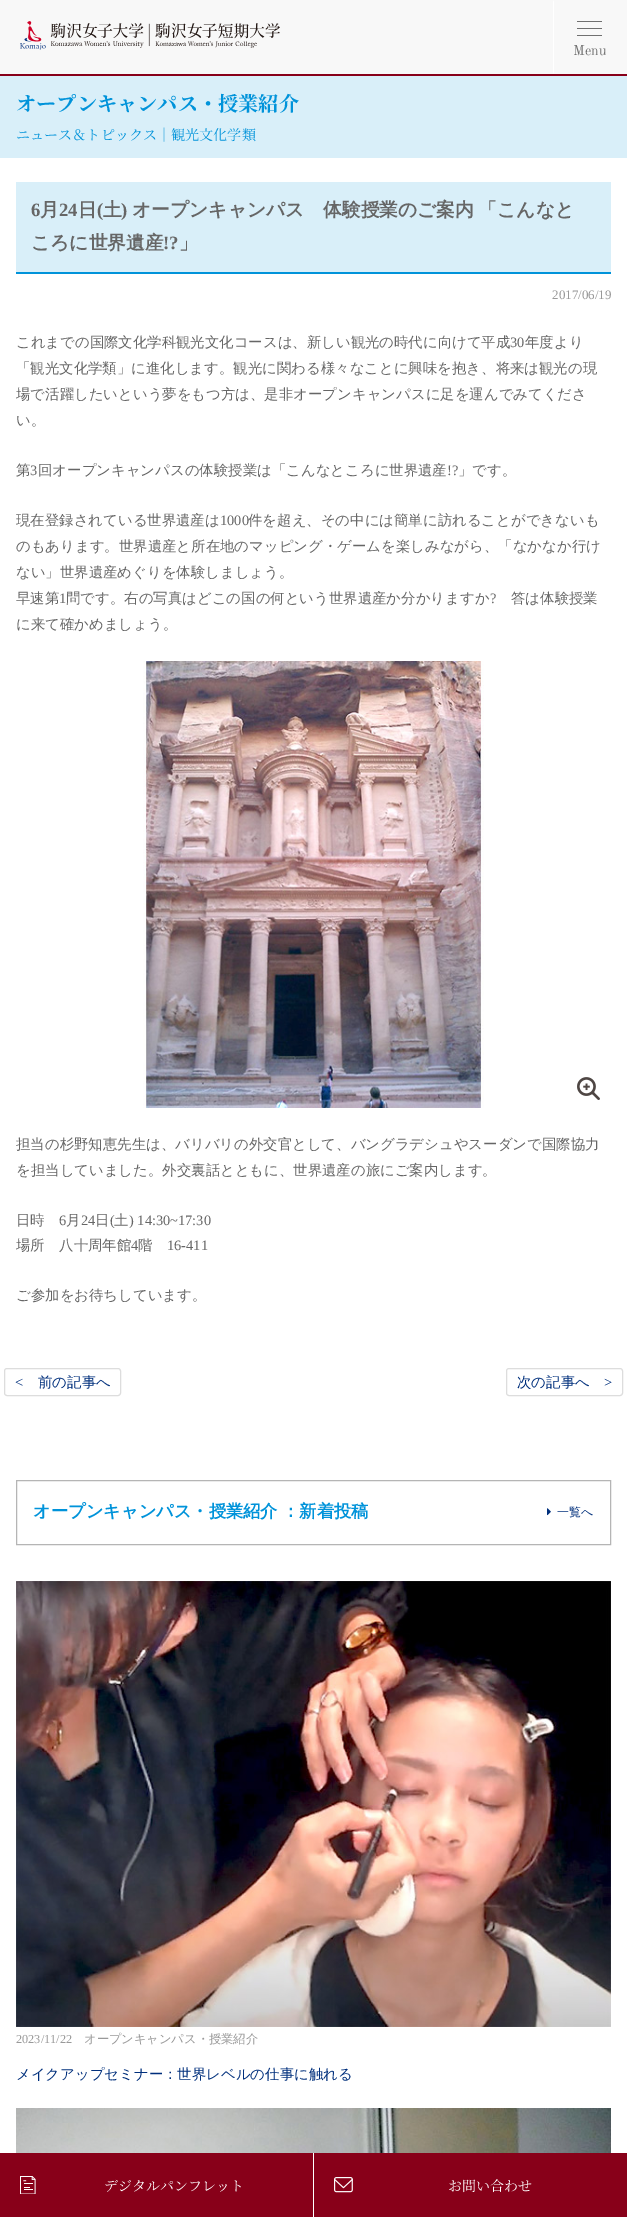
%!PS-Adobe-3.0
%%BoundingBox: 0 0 627 2217
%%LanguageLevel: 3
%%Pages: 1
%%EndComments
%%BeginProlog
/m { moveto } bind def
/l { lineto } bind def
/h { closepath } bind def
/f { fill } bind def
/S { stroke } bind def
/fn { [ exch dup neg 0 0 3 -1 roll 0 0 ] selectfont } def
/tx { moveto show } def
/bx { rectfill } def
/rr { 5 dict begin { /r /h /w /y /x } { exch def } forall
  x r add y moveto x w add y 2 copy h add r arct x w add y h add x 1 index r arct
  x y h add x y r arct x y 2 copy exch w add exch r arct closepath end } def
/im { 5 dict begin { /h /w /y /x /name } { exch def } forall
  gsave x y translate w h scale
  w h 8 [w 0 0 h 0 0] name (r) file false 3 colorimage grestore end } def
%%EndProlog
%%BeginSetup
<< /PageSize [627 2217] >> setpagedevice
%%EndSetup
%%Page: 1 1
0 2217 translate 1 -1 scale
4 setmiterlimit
1 setgray
0 0 627 2217 bx
0.973 setgray
0 0 627 74 bx
(image0.raw) 20 21 260 29 im
1 setgray
553 74 m 553 0 l 554 2 l 554 72 l h f
0.439 setgray
577 21 25 1 bx
577 28 25 1 bx
577 35 25 1 bx
/OldStandardTT-Regular 14 fn
(Menu) 573 55 tx
0.533 0 0.098 setrgbcolor
0 74 627 2 bx
0.851 0.937 0.976 setrgbcolor
0 76 627 82 bx
/NotoSerifJP-Bold 20.2 fn
0 0.576 0.855 setrgbcolor
(オープンキャンパス・授業紹介) 16 111 tx
/NotoSerifJP-Regular 14.1 fn
(ニュース＆トピックス｜観光文化学類) 16 140 tx
0.851 0.937 0.976 setrgbcolor
16 182 595 90 bx
0 0.576 0.855 setrgbcolor
16 272 595 2 bx
/LiberationSerif-Bold 18.75 fn
0.4 setgray
(6) 31 216 tx
/WenQuanYiZenHei-Bold 18.75 fn
(月) 40 216 tx
/LiberationSerif-Bold 18.75 fn
(24) 59 216 tx
/WenQuanYiZenHei-Bold 18.75 fn
(日) 78 216 tx
/LiberationSerif-Bold 18.75 fn
(\() 97 216 tx
/WenQuanYiZenHei-Bold 18.75 fn
(土) 103 216 tx
/LiberationSerif-Bold 18.75 fn
(\)) 121 216 tx
/WenQuanYiZenHei-Bold 18.75 fn
132 216 m -1 0 32 (オープンキャンパス　体験授業のご案内 「こんなと) widthshow
(ころに世界遺産) 31 249 tx
/LiberationSerif-Bold 18.75 fn
(!?) 163 249 tx
/WenQuanYiZenHei-Bold 18.75 fn
(」) 179 249 tx
/LiberationSerif-Regular 13 fn
0.6 setgray
(2017/06/19) 552 299 tx
/WenQuanYiZenHei-Medium 14.4 fn
0.4 setgray
(これまでの国際文化学科観光文化コースは、新しい観光の時代に向けて平成) 16 347 tx
/LiberationSerif-Regular 14.4 fn
(30) 510 347 tx
/WenQuanYiZenHei-Medium 14.4 fn
(年度より) 525 347 tx
(「観光文化学類」に進化します。観光に関わる様々なことに興味を抱き、将来は観光の現) 16 373 tx
(場で活躍したいという夢をもつ方は、是非オープンキャンパスに足を運んでみてくださ) 16 399 tx
(い。) 16 425 tx
(第) 16 475 tx
/LiberationSerif-Regular 14.4 fn
(3) 30 475 tx
/WenQuanYiZenHei-Medium 14.4 fn
(回オープンキャンパスの体験授業は「こんなところに世界遺産) 38 475 tx
/LiberationSerif-Regular 14.4 fn
(!?) 447 475 tx
/WenQuanYiZenHei-Medium 14.4 fn
(」です。) 458 475 tx
(現在登録されている世界遺産は) 16 525 tx
/LiberationSerif-Regular 14.4 fn
(1000) 220 525 tx
/WenQuanYiZenHei-Medium 14.4 fn
(件を超え、その中には簡単に訪れることができないも) 248 525 tx
(のもあります。世界遺産と所在地のマッピング・ゲームを楽しみながら、「なかなか行け) 16 551 tx
(ない」世界遺産めぐりを体験しましょう。) 16 577 tx
(早速第) 16 603 tx
/LiberationSerif-Regular 14.4 fn
(1) 59 603 tx
/WenQuanYiZenHei-Medium 14.4 fn
(問です。右の写真はどこの国の何という世界遺産か分かりますか) 66 603 tx
/LiberationSerif-Regular 14.4 fn
(?) 490 603 tx
/WenQuanYiZenHei-Medium 14.4 fn
(答は体験授業) 511 603 tx
(に来て確かめましょう。) 16 629 tx
(image1.raw) 143 661 341 447 im
(image2.raw) 577 1077 23 23 im
(担当の杉野知恵先生は、バリバリの外交官として、バングラデシュやスーダンで国際協力) 16 1149 tx
(を担当していました。外交裏話とともに、世界遺産の旅にご案内します。) 16 1175 tx
(日時) 16 1225 tx
/LiberationSerif-Regular 14.4 fn
(6) 59 1225 tx
/WenQuanYiZenHei-Medium 14.4 fn
(月) 66 1225 tx
/LiberationSerif-Regular 14.4 fn
(24) 81 1225 tx
/WenQuanYiZenHei-Medium 14.4 fn
(日) 95 1225 tx
/LiberationSerif-Regular 14.4 fn
(\() 110 1225 tx
/WenQuanYiZenHei-Medium 14.4 fn
(土) 114 1225 tx
/LiberationSerif-Regular 14.4 fn
(\) 14:30~17:30) 129 1225 tx
/WenQuanYiZenHei-Medium 14.4 fn
(場所　八十周年館) 16 1250 tx
/LiberationSerif-Regular 14.4 fn
(4) 131 1250 tx
/WenQuanYiZenHei-Medium 14.4 fn
(階) 138 1250 tx
/LiberationSerif-Regular 14.4 fn
(16-411) 167 1250 tx
/WenQuanYiZenHei-Medium 14.4 fn
(ご参加をお待ちしています。) 16 1300 tx
0.867 setgray
4.5 1368.5 116 27 2.5 rr S
/LiberationSerif-Regular 14.4 fn
0 0.184 0.486 setrgbcolor
(<) 15 1387 tx
/WenQuanYiZenHei-Medium 14.4 fn
(前の記事へ) 38 1387 tx
0.867 setgray
506.5 1368.5 116 27 2.5 rr S
0 0.184 0.486 setrgbcolor
(次の記事へ) 517 1387 tx
/LiberationSerif-Regular 14.4 fn
(>) 604 1387 tx
0.71 setgray
16.5 1480.5 594 64 rectstroke
/WenQuanYiZenHei-Bold 17.25 fn
0 0.576 0.855 setrgbcolor
(オープンキャンパス・授業紹介) 33 1517 tx
(：新着投稿) 282 1517 tx
(image3.raw) 547 1508 4 8 im
/WenQuanYiZenHei-Medium 12 fn
0 0.184 0.486 setrgbcolor
(一覧へ) 557 1516 tx
(image4.raw) 16 1581 595 446 im
/LiberationSerif-Regular 12.25 fn
0.6 setgray
(2023/11/22) 16 2043 tx
/WenQuanYiZenHei-Medium 12.25 fn
(オープンキャンパス・授業紹介) 84 2043 tx
/WenQuanYiZenHei-Medium 14.4 fn
0 0.184 0.486 setrgbcolor
(メイクアップセミナー：世界レベルの仕事に触れる) 16 2079 tx
(image5.raw) 16 2108 595 45 im
0.533 0 0.098 setrgbcolor
0 2153 313 64 bx
(image6.raw) 20 2176 16 18 im
/NotoSerifJP-Regular 14 fn
1 setgray
(デジタルパンフレット) 104 2191 tx
0.533 0 0.098 setrgbcolor
314 2153 313 64 bx
(image7.raw) 334 2177 19 16 im
1 setgray
(お問い合わせ) 448 2191 tx
showpage
%%EOF
